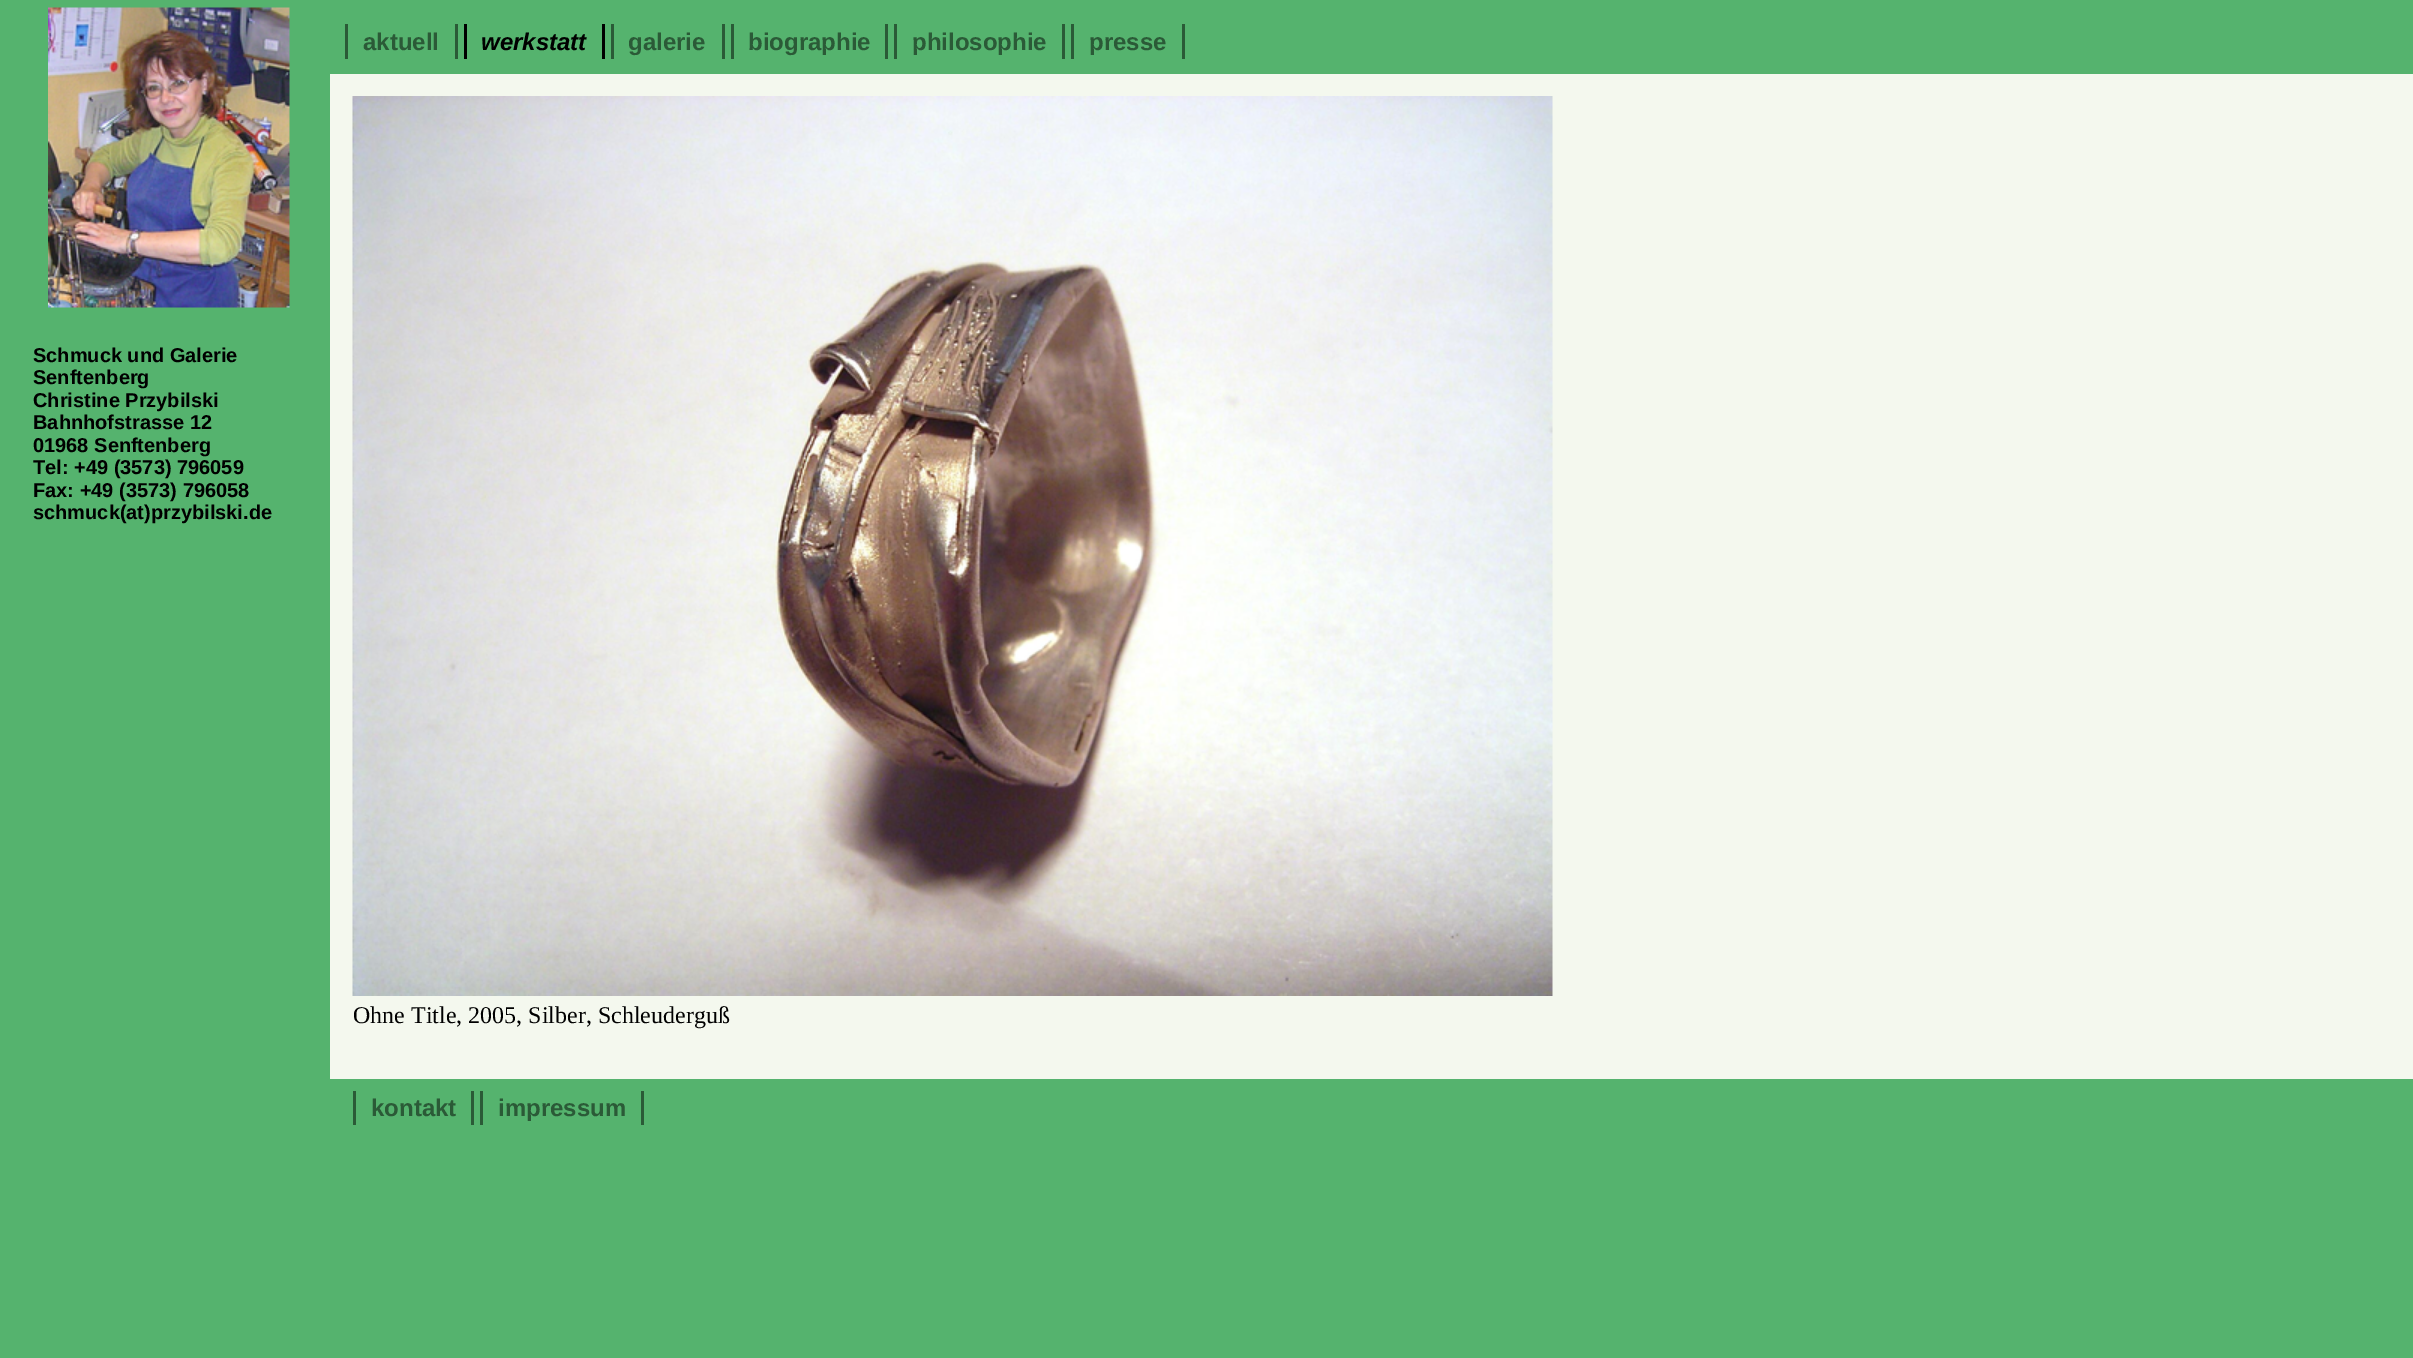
%!PS-Adobe-3.0
%%BoundingBox: 0 0 2413 1358
%%LanguageLevel: 3
%%Pages: 1
%%EndComments
%%BeginProlog
/fn { [ exch dup neg 0 0 3 -1 roll 0 0 ] selectfont } def
/tx { moveto show } def
/bx { rectfill } def
/im { 5 dict begin { /h /w /y /x /name } { exch def } forall
  gsave x y translate w h scale
  w h 8 [w 0 0 h 0 0] name (r) file false 3 colorimage grestore end } def
%%EndProlog
%%BeginSetup
<< /PageSize [2413 1358] >> setpagedevice
%%EndSetup
%%Page: 1 1
0 1358 translate 1 -1 scale
4 setmiterlimit
0.333 0.702 0.431 setrgbcolor
0 0 2413 1358 bx
(image0.raw) 48 7 242 301 im
/LiberationSans-Bold 20 fn
0 setgray
(Schmuck und Galerie) 33 362 tx
(Senftenberg) 33 384 tx
(Christine Przybilski) 33 407 tx
(Bahnhofstrasse 12) 33 429 tx
(01968 Senftenberg) 33 452 tx
(Tel: +49 \(3573\) 796059) 33 474 tx
(Fax: +49 \(3573\) 796058) 33 497 tx
(schmuck\(at\)przybilski.de) 33 519 tx
/LiberationSans-Bold 24 fn
0.169 0.353 0.216 setrgbcolor
(aktuell) 363 50 tx
455 24 3 35 bx
345 24 3 35 bx
/LiberationSans-BoldItalic 24 fn
0 setgray
(werkstatt) 481 50 tx
602 24 3 35 bx
464 24 3 35 bx
/LiberationSans-Bold 24 fn
0.169 0.353 0.216 setrgbcolor
(galerie) 628 50 tx
722 24 3 35 bx
611 24 3 35 bx
(biographie) 748 50 tx
885 24 3 35 bx
731 24 3 35 bx
(philosophie) 912 50 tx
1062 24 3 35 bx
894 24 3 35 bx
(presse) 1089 50 tx
1182 24 3 35 bx
1071 24 3 35 bx
0.957 0.973 0.933 setrgbcolor
330 74 2083 1005 bx
(image1.raw) 352 96 1201 900 im
/LiberationSerif-Regular 24 fn
0 setgray
(Ohne Title, 2005, Silber, Schleuderguß) 353 1023 tx
/LiberationSans-Bold 24 fn
0.169 0.353 0.216 setrgbcolor
(kontakt) 371 1116 tx
471 1091 3 34 bx
353 1091 3 34 bx
(impressum) 498 1116 tx
641 1091 3 34 bx
480 1091 3 34 bx
showpage
%%EOF
